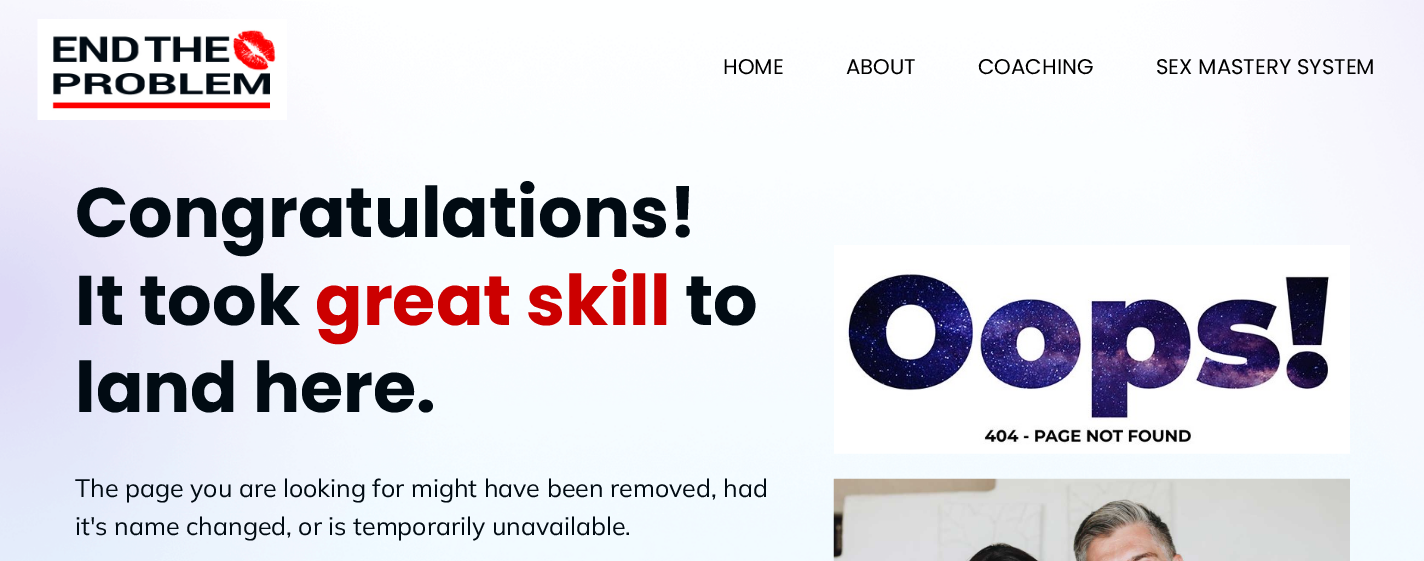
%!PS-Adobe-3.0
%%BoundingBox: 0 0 1424 561
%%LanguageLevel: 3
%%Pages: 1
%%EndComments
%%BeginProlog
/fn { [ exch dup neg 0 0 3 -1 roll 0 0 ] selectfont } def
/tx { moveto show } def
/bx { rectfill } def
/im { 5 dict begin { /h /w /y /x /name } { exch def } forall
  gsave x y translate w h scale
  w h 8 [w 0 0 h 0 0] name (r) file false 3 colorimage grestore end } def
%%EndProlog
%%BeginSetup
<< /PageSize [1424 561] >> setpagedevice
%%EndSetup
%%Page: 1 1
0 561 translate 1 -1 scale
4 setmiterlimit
1 setgray
0 0 1424 561 bx
(image0.raw) 0 0 1424 561 im
(image1.raw) 37 19 250 101 im
/Poppins-Regular 21.25 fn
0 setgray
(HOME) 723 74 tx
(ABOUT) 846 74 tx
(COACHING) 978 74 tx
(SEX MASTERY SYSTEM) 1156 74 tx
/Poppins-Bold 70 fn
0.004 0.043 0.075 setrgbcolor
(Congratulations!) 75 237 tx
(It took) 75 325 tx
0.8 0 0 setrgbcolor
(great skill) 315 325 tx
0.004 0.043 0.075 setrgbcolor
(to) 685 325 tx
(land here.) 75 412 tx
/Mulish-Regular 25 fn
(The page you are looking for might have been removed, had) 75 497 tx
(it's name changed, or is temporarily unavailable.) 75 535 tx
(image2.raw) 834 245 516 209 im
(image3.raw) 833 478 517 83 im
showpage
%%EOF
